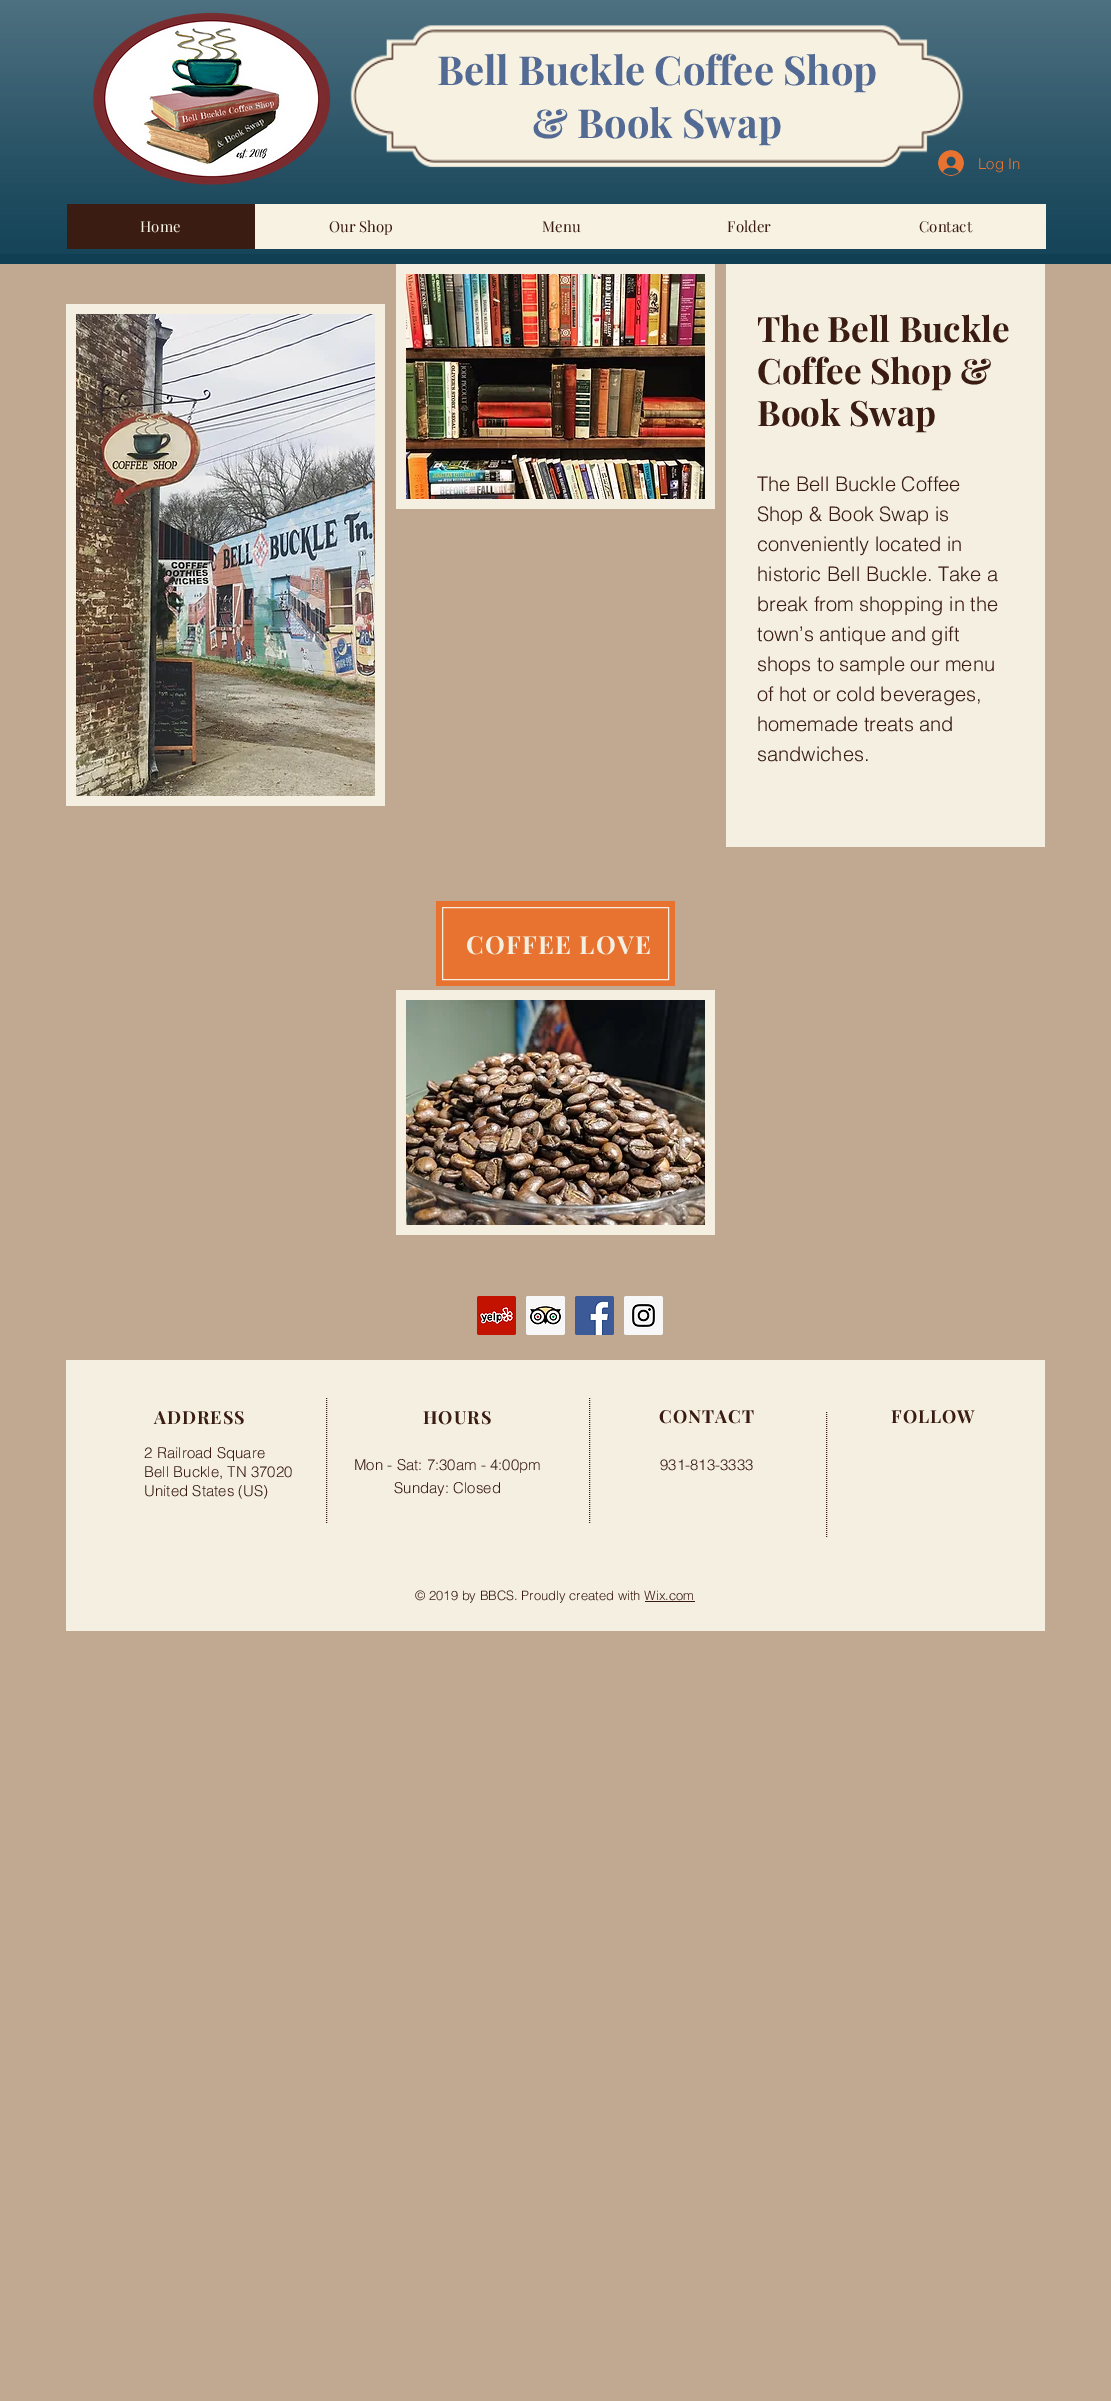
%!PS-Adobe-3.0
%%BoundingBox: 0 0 1111 2401
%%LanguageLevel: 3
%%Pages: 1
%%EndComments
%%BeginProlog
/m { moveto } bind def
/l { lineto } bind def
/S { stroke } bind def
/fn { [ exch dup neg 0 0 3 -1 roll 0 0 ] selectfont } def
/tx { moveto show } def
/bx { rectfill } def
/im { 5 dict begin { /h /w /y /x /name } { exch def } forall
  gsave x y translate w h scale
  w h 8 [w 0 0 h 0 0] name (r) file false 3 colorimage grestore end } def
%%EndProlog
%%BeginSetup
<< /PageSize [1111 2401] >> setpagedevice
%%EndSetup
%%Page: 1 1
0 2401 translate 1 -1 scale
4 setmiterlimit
0.753 0.659 0.569 setrgbcolor
0 0 1111 2401 bx
0.063 0.247 0.329 setrgbcolor
0 0 1111 264 bx
(image0.raw) 0 0 1111 254 im
(image1.raw) 93 12 238 173 im
(image2.raw) 350 25 614 143 im
/PlayfairDisplay-Bold 40 fn
0.325 0.416 0.58 setrgbcolor
(Bell Buckle Coffee Shop) 437 85 tx
(& Book Swap) 532 138 tx
(image3.raw) 938 150 26 26 im
/helvetica-Light 15 fn
0.91 0.451 0.188 setrgbcolor
(Log In) 978 169 tx
0.969 0.949 0.886 setrgbcolor
255 204 791 45 bx
0.227 0.11 0.075 setrgbcolor
67 204 188 45 bx
/PlayfairDisplay-Regular 15 fn
0.957 0.937 0.882 setrgbcolor
(Home) 140 232 tx
0.227 0.11 0.075 setrgbcolor
(Our Shop) 329 232 tx
(Menu) 542 232 tx
(Folder) 727 232 tx
(Contact) 919 232 tx
0.957 0.937 0.882 setrgbcolor
66 304 319 502 bx
(image4.raw) 76 314 299 482 im
396 264 319 245 bx
(image5.raw) 406 274 299 225 im
726 264 319 583 bx
/PlayfairDisplay-Bold 35 fn
0.227 0.11 0.075 setrgbcolor
(The Bell Buckle) 757 342 tx
(Coffee Shop &) 757 384 tx
(Book Swap) 757 426 tx
/helvetica-Light 20 fn
(The Bell Buckle Coffee) 757 491 tx
(Shop & Book Swap is) 757 521 tx
(conveniently located in) 757 551 tx
(historic Bell Buckle. Take a) 757 581 tx
(break from shopping in the) 757 611 tx
(town’s antique and gift) 757 641 tx
(shops to sample our menu) 757 671 tx
(of hot or cold beverages,) 757 701 tx
(homemade treats and) 757 731 tx
(sandwiches.) 757 761 tx
0.91 0.451 0.188 setrgbcolor
436 901 239 85 bx
0.957 0.937 0.882 setrgbcolor
442.5 907.5 226 72 rectstroke
/PlayfairDisplay-Bold 25 fn
466 954 m 1.25 0 (COFFEE LOVE) ashow
396 990 319 245 bx
(image6.raw) 406 1000 299 225 im
(image7.raw) 477 1296 39 39 im
(image8.raw) 526 1296 39 39 im
(image9.raw) 575 1296 39 39 im
(image10.raw) 624 1296 39 39 im
66 1360 979 271 bx
/PlayfairDisplay-Bold 18 fn
0.227 0.11 0.075 setrgbcolor
154 1424 m 1 0 (ADDRESS) ashow
[1 1] 0 setdash
326.5 1398 m 326.5 1523 l S
423 1424 m 1 0 (HOURS) ashow
589.5 1398 m 589.5 1523 l S
659 1423 m 1 0 (CONTACT) ashow
826.5 1412 m 826.5 1537 l S
891 1423 m 1 0 (FOLLOW) ashow
/helvetica-Light 15 fn
(2 Railroad Square) 144 1458 tx
(Bell Buckle, TN 37020) 144 1477 tx
(United States \(US\)) 144 1496 tx
(Mon - Sat: 7:30am - 4:00pm) 354 1470 tx
(Sunday: Closed) 394 1493 tx
(931-813-3333) 660 1470 tx
/helvetica-Light 13 fn
(© 2019 by BBCS. Proudly created with Wix.com) 415 1600 tx
645 1601 50 1 bx
showpage
%%EOF
